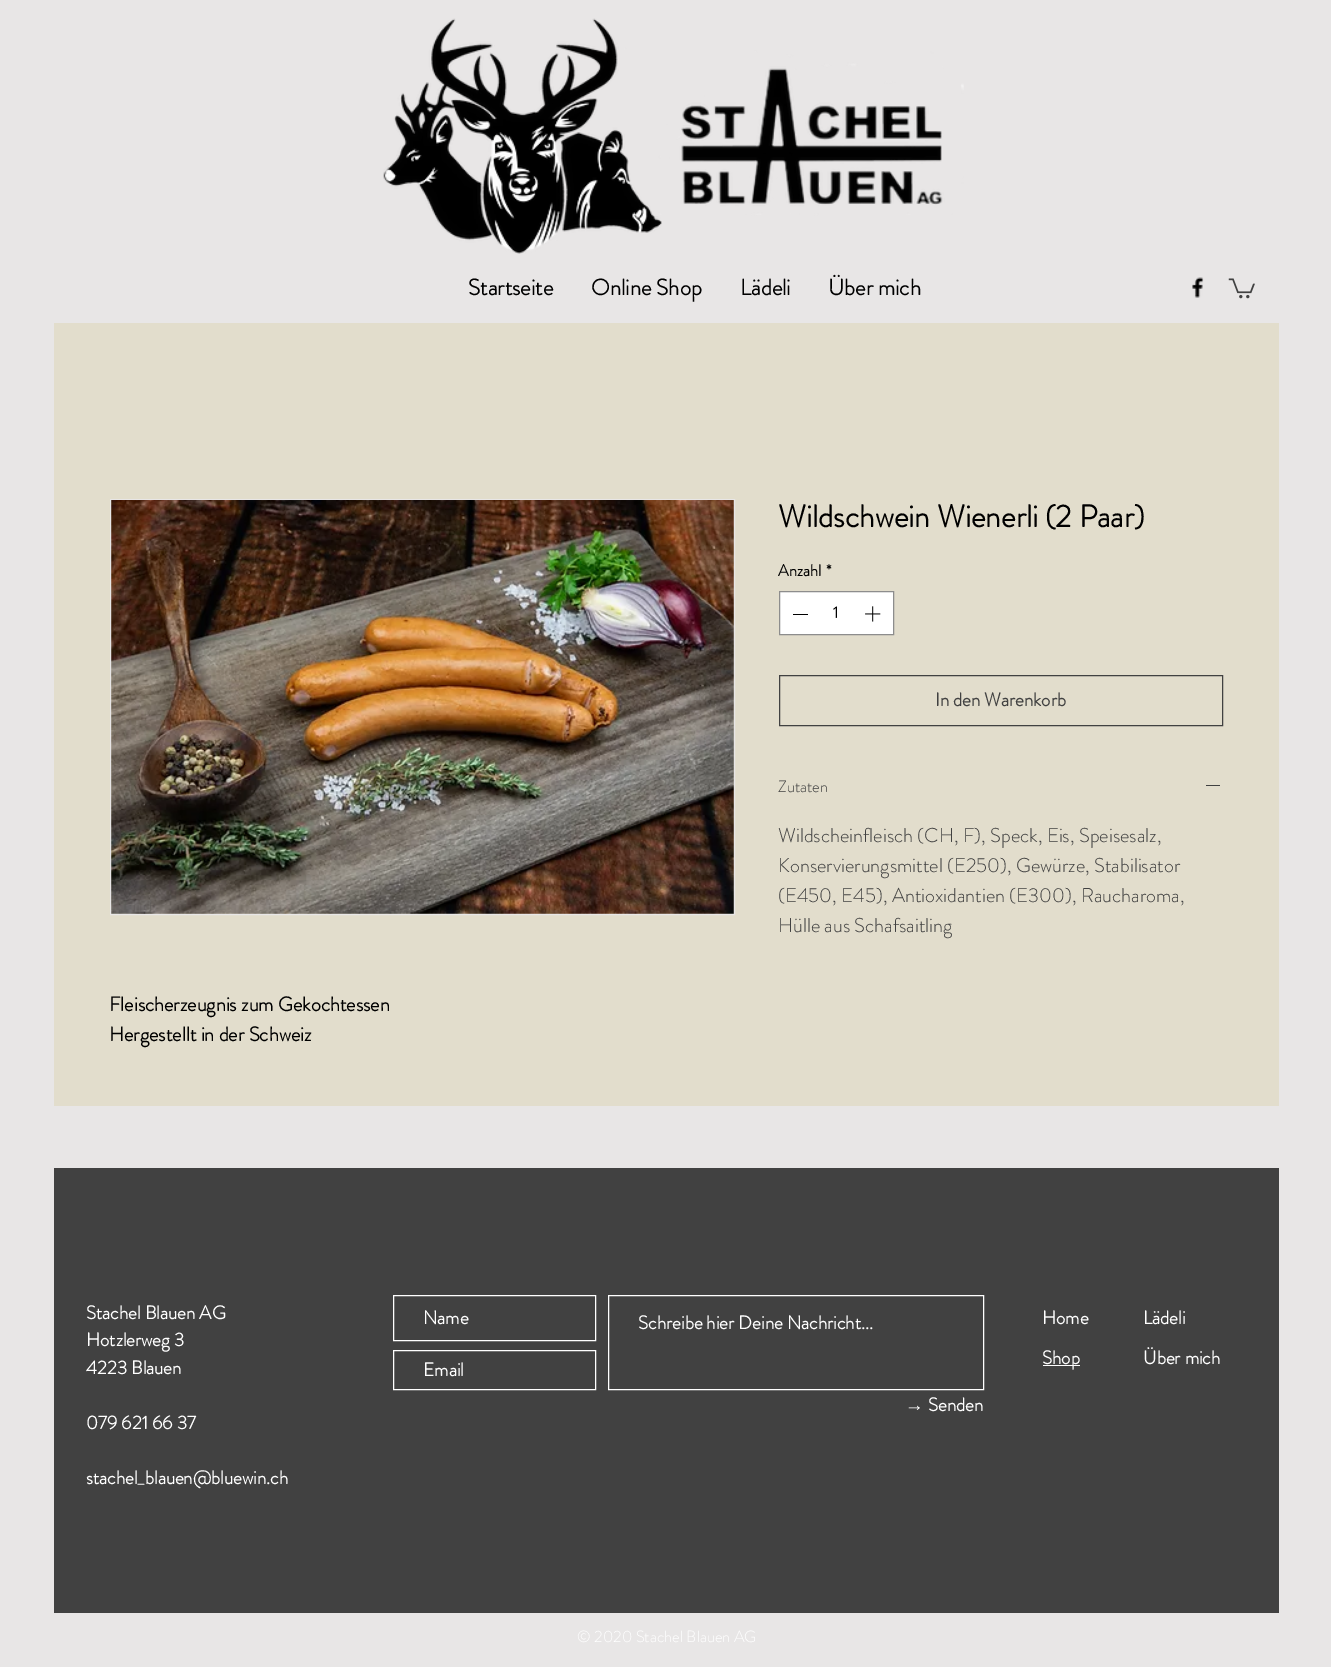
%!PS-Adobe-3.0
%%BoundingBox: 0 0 1331 1667
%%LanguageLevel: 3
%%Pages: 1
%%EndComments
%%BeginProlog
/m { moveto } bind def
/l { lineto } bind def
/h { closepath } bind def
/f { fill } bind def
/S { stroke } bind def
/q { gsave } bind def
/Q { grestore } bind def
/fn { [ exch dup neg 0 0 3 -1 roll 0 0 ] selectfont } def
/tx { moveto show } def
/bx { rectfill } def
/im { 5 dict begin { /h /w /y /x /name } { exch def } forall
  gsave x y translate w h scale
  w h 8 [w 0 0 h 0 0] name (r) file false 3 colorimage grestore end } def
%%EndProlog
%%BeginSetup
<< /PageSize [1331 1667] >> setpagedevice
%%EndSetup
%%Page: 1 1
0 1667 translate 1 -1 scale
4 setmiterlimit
0.91 0.902 0.902 setrgbcolor
0 0 1331 1667 bx
(image0.raw) 383 18 581 236 im
/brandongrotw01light-Bold 22.5 fn
0 setgray
(Startseite) 468 295 tx
(Online Shop) 591 295 tx
(Lädeli) 740 295 tx
(Über mich) 828 295 tx
(image1.raw) 1192 277 12 21 im
(image2.raw) 1228 278 27 21 im
0.886 0.867 0.8 setrgbcolor
54 323 1225 783 bx
/brandongrotw01light-Bold 31.25 fn
0 setgray
(Wildschwein Wienerli \(2 Paar\)) 778 527 tx
/brandongrotw01light-Bold 16.25 fn
(Anzahl) 778 576 tx
(*) 826 576 tx
1 setgray
779.5 591.5 m 893.5 591.5 l 893.5 634.5 l 779.5 634.5 l h q f Q
0.553 setgray
S
0 setgray
793 614 15 1 bx
(1) 833 618 tx
(image3.raw) 865 606 16 16 im
0.255 setgray
779.5 675.5 443 50 rectstroke
/brandongrotw01light-Bold 18.75 fn
(In den Warenkorb) 935 706 tx
/brandongrotw01light-Light 16.25 fn
(Zutaten) 778 792 tx
1206 785 14 1 bx
/brandongrotw01light-Light 20 fn
(Wildscheinfleisch \(CH, F\), Speck, Eis, Speisesalz,) 778 842 tx
(Konservierungsmittel \(E250\), Gewürze, Stabilisator) 778 872 tx
(\(E450, E45\), Antioxidantien \(E300\), Raucharoma,) 778 902 tx
(Hülle aus Schafsaitling) 778 932 tx
0.91 0.902 0.902 setrgbcolor
110.5 499.5 624 415 rectstroke
(image4.raw) 111 500 623 414 im
/brandongrotw01light-Bold 20 fn
0 setgray
(Fleischerzeugnis zum Gekochtessen) 109 1011 tx
(Hergestellt in der Schweiz) 109 1041 tx
0.255 setgray
54 1168 1225 445 bx
/brandongrotw01light-Bold 18.75 fn
1 setgray
(Stachel Blauen AG) 86 1319 tx
(Hotzlerweg 3) 86 1346 tx
(4223 Blauen) 86 1374 tx
(079 621 66 37) 86 1429 tx
(stachel_blauen@bluewin.ch) 86 1484 tx
393.5 1295.5 202 45 rectstroke
(Name) 423 1324 tx
608.5 1295.5 375 94 rectstroke
(Schreibe hier Deine Nachricht...) 638 1329 tx
393.5 1350.5 202 39 rectstroke
(Email) 423 1376 tx
/LiberationSans-Bold 18.75 fn
(→) 905 1411 tx
/brandongrotw01light-Bold 18.75 fn
(Senden) 928 1411 tx
(Home) 1042 1324 tx
(Lädeli) 1143 1324 tx
1043 1365 37 1 bx
(Shop) 1042 1364 tx
(Über mich) 1143 1364 tx
/brandongrotw01light-Light 16.25 fn
(© 2020 Stachel Blauen AG) 577 1642 tx
showpage
%%EOF
